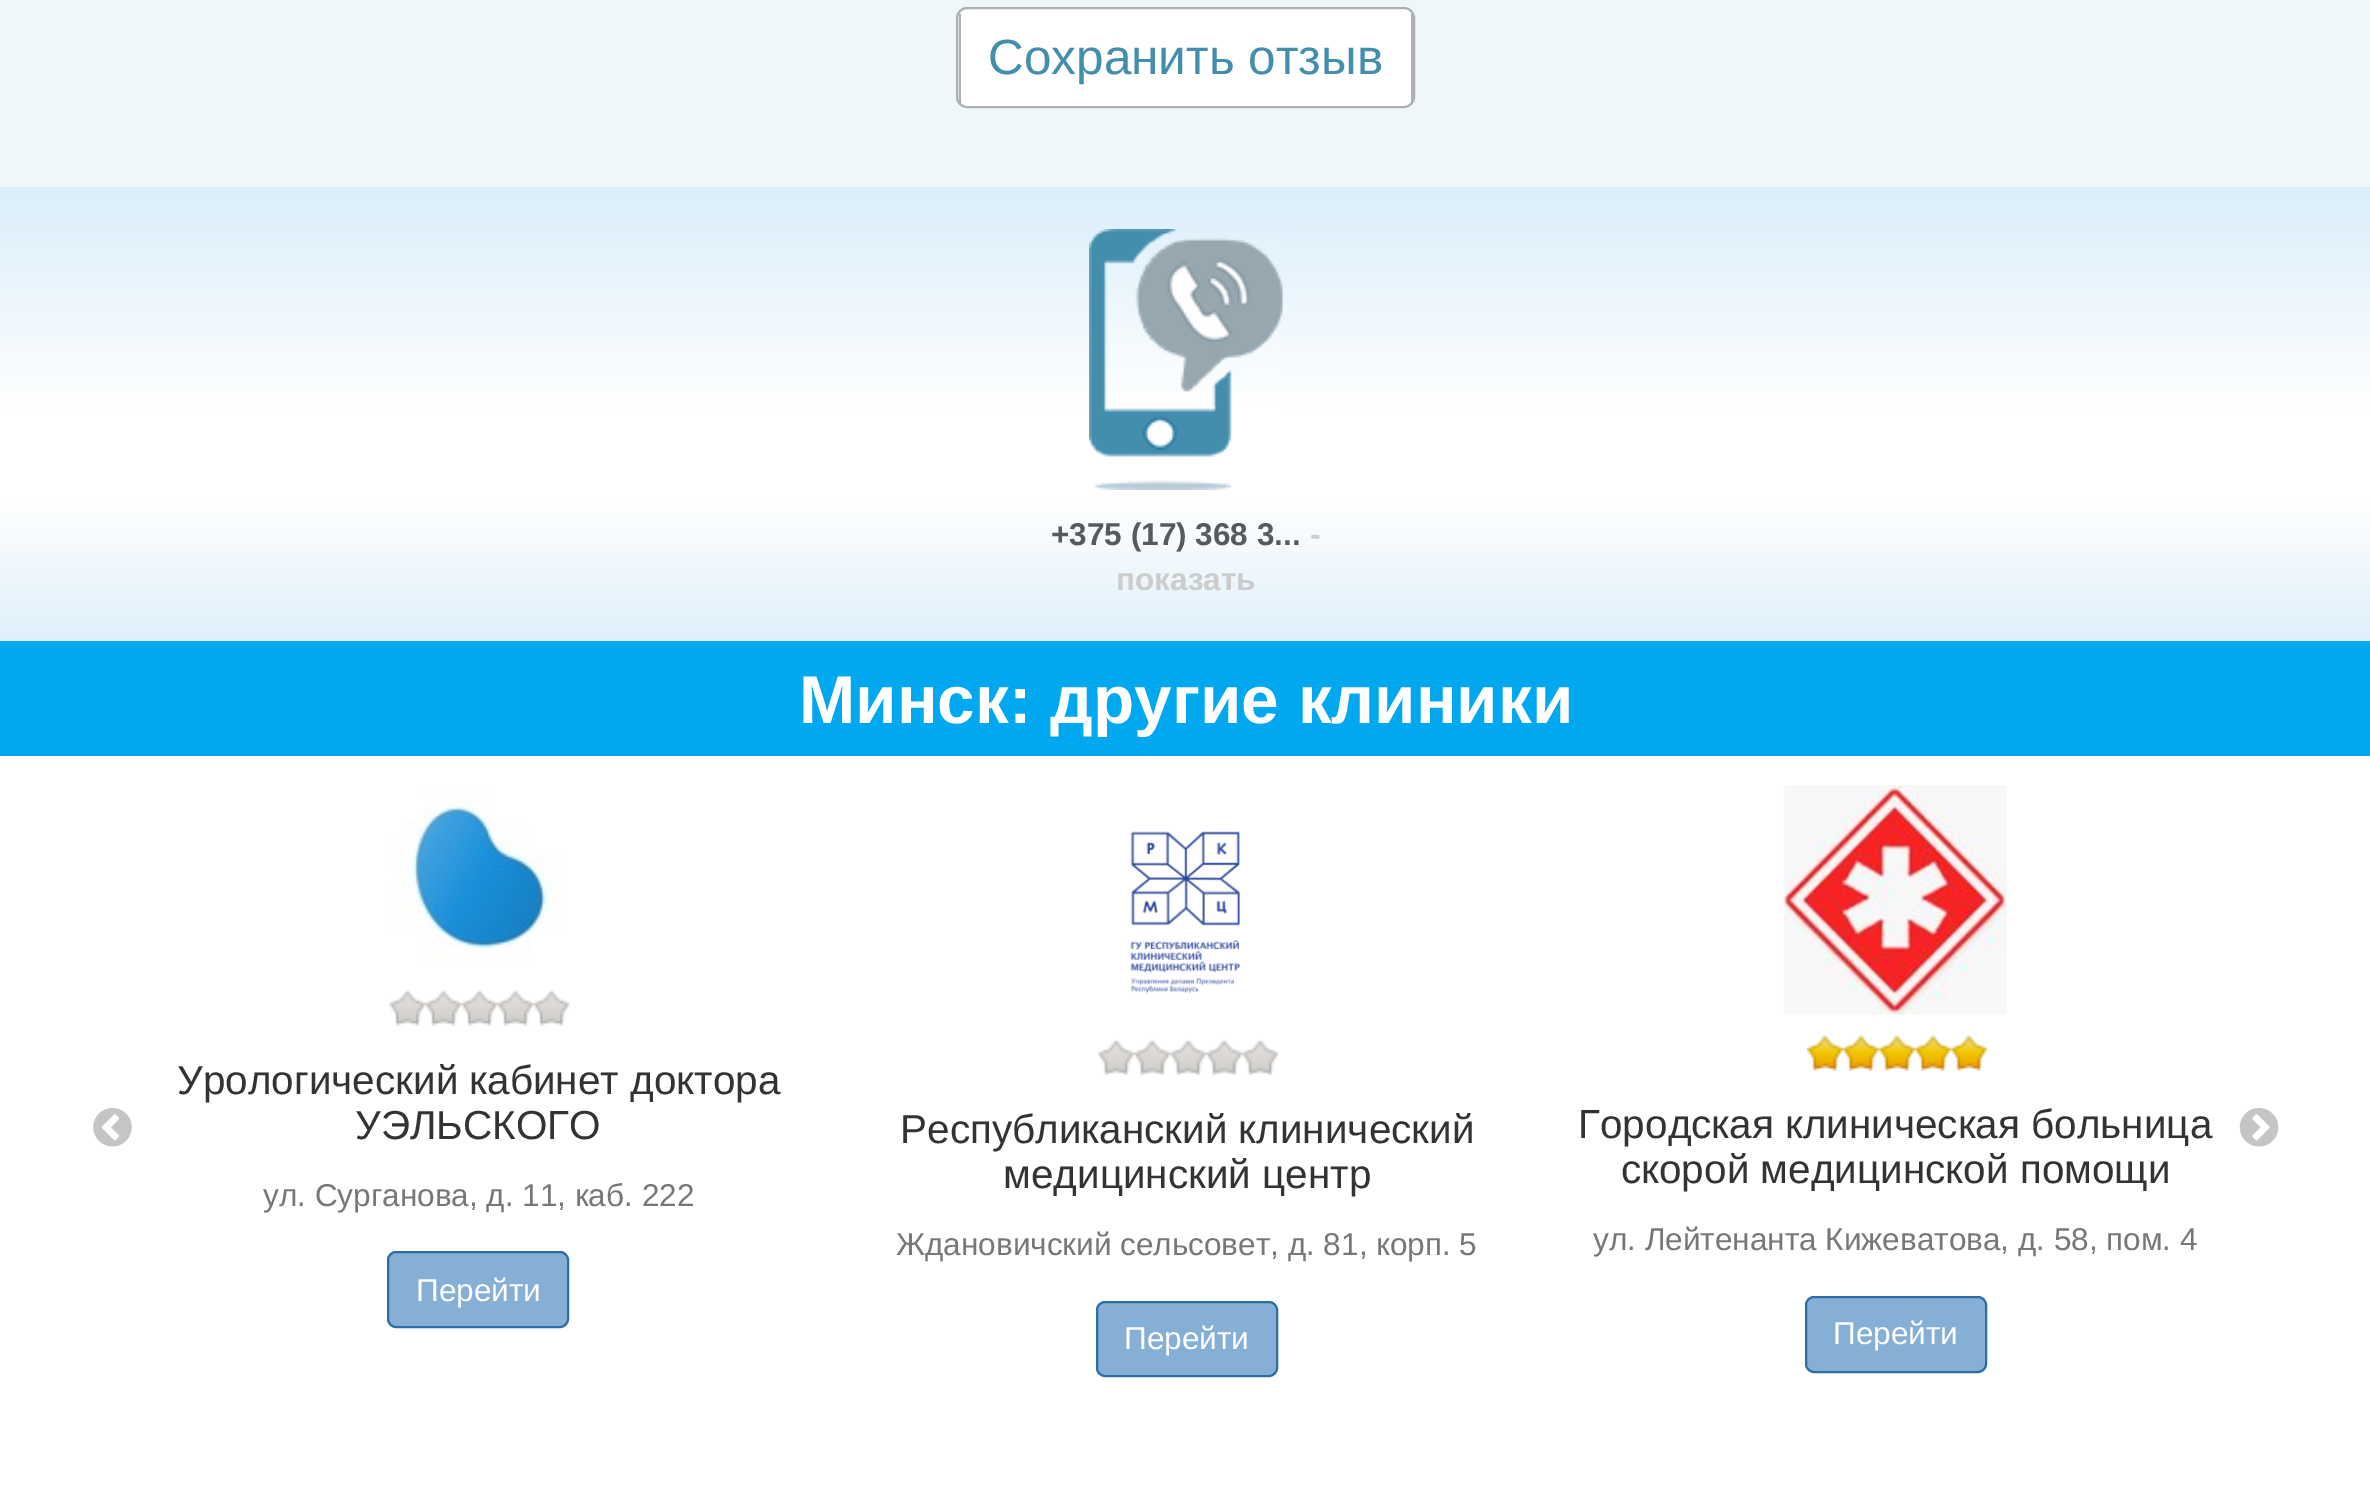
%!PS-Adobe-3.0
%%BoundingBox: 0 0 2370 1509
%%LanguageLevel: 3
%%Pages: 1
%%EndComments
%%BeginProlog
/m { moveto } bind def
/l { lineto } bind def
/c { curveto } bind def
/h { closepath } bind def
/f { fill } bind def
/S { stroke } bind def
/q { gsave } bind def
/Q { grestore } bind def
/w { setlinewidth } bind def
/fn { [ exch dup neg 0 0 3 -1 roll 0 0 ] selectfont } def
/tx { moveto show } def
/bx { rectfill } def
/rr { 5 dict begin { /r /h /w /y /x } { exch def } forall
  x r add y moveto x w add y 2 copy h add r arct x w add y h add x 1 index r arct
  x y h add x y r arct x y 2 copy exch w add exch r arct closepath end } def
/im { 5 dict begin { /h /w /y /x /name } { exch def } forall
  gsave x y translate w h scale
  w h 8 [w 0 0 h 0 0] name (r) file false 3 colorimage grestore end } def
%%EndProlog
%%BeginSetup
<< /PageSize [2370 1509] >> setpagedevice
%%EndSetup
%%Page: 1 1
0 1509 translate 1 -1 scale
4 setmiterlimit
1 setgray
0 0 2370 1509 bx
0.941 0.969 0.984 setrgbcolor
0 0 2370 187 bx
1 setgray
968 9 m 1404 9 l 1408 9 1411 13 1411 18 c 1411 97 l 1411 102 1408 106 1404 106 c 968 106 l 964 106 961 102 961 97 c 961 18 l 961 13 964 9 968 9 c h f
0.663 0.694 0.71 setrgbcolor
2 w
957 8 457 99 10 rr S
1411 14 2 90 bx
959 14 2 90 bx
/LiberationSans-Regular 49.5 fn
0.263 0.553 0.678 setrgbcolor
(Сохранить отзыв) 988 74 tx
q 0 187 m 2370 187 l 2370 641 l 0 641 l h clip newpath
<< /ShadingType 2 /ColorSpace /DeviceRGB /Coords [1186 187 1186 641] /Extend [true true] /Function << /FunctionType 3 /Domain [0 1] /Functions [<< /FunctionType 2 /Domain [0 1] /C0 [0.855 0.933 0.98] /C1 [1 1 1] /N 1 >> << /FunctionType 2 /Domain [0 1] /C0 [1 1 1] /C1 [1 1 1] /N 1 >> << /FunctionType 2 /Domain [0 1] /C0 [1 1 1] /C1 [0.871 0.941 0.984] /N 1 >>] /Bounds [0.5 0.69] /Encode [0 1 0 1 0 1] >> >> shfill Q
(image0.raw) 1089 229 194 261 im
/LiberationSans-Bold 31.5 fn
0.345 0.349 0.357 setrgbcolor
(+375 \(17\) 368 3...) 1051 545 tx
0.8 setgray
(-) 1310 545 tx
(показать) 1116 590 tx
0 0.659 0.941 setrgbcolor
0 641 2370 115 bx
/LiberationSans-Bold 67.5 fn
1 setgray
(Минск: другие клиники) 799 723 tx
(image1.raw) 93 1108 39 39 im
(image2.raw) 387 785 175 180 im
(image3.raw) 388 989 182 37 im
/LiberationSans-Regular 40.5 fn
0.2 setgray
(Урологический кабинет доктора) 177 1094 tx
(УЭЛЬСКОГО) 355 1139 tx
/LiberationSans-Regular 31.5 fn
0.467 setgray
(ул. Сурганова, д. 11, каб. 222) 263 1206 tx
0.522 0.686 0.831 setrgbcolor
388 1252 180 75 8 rr q f Q
0.18 0.427 0.643 setrgbcolor
S
1 setgray
(Перейти) 416 1301 tx
(image4.raw) 1130 831 110 163 im
(image5.raw) 1097 1039 182 37 im
/LiberationSans-Regular 40.5 fn
0.2 setgray
(Республиканский клинический) 900 1143 tx
(медицинский центр) 1003 1188 tx
/LiberationSans-Regular 31.5 fn
0.467 setgray
(Ждановичский сельсовет, д. 81, корп. 5) 896 1255 tx
0.522 0.686 0.831 setrgbcolor
1097 1302 180 74 8 rr q f Q
0.18 0.427 0.643 setrgbcolor
S
1 setgray
(Перейти) 1124 1349 tx
(image6.raw) 1783 785 224 230 im
(image7.raw) 1806 1034 181 37 im
/LiberationSans-Regular 40.5 fn
0.2 setgray
(Городская клиническая больница) 1578 1138 tx
(скорой медицинской помощи) 1621 1183 tx
/LiberationSans-Regular 31.5 fn
0.467 setgray
(ул. Лейтенанта Кижеватова, д. 58, пом. 4) 1593 1250 tx
0.522 0.686 0.831 setrgbcolor
1806 1297 180 75 8 rr q f Q
0.18 0.427 0.643 setrgbcolor
S
1 setgray
(Перейти) 1833 1344 tx
(image8.raw) 2239 1108 40 39 im
showpage
%%EOF
